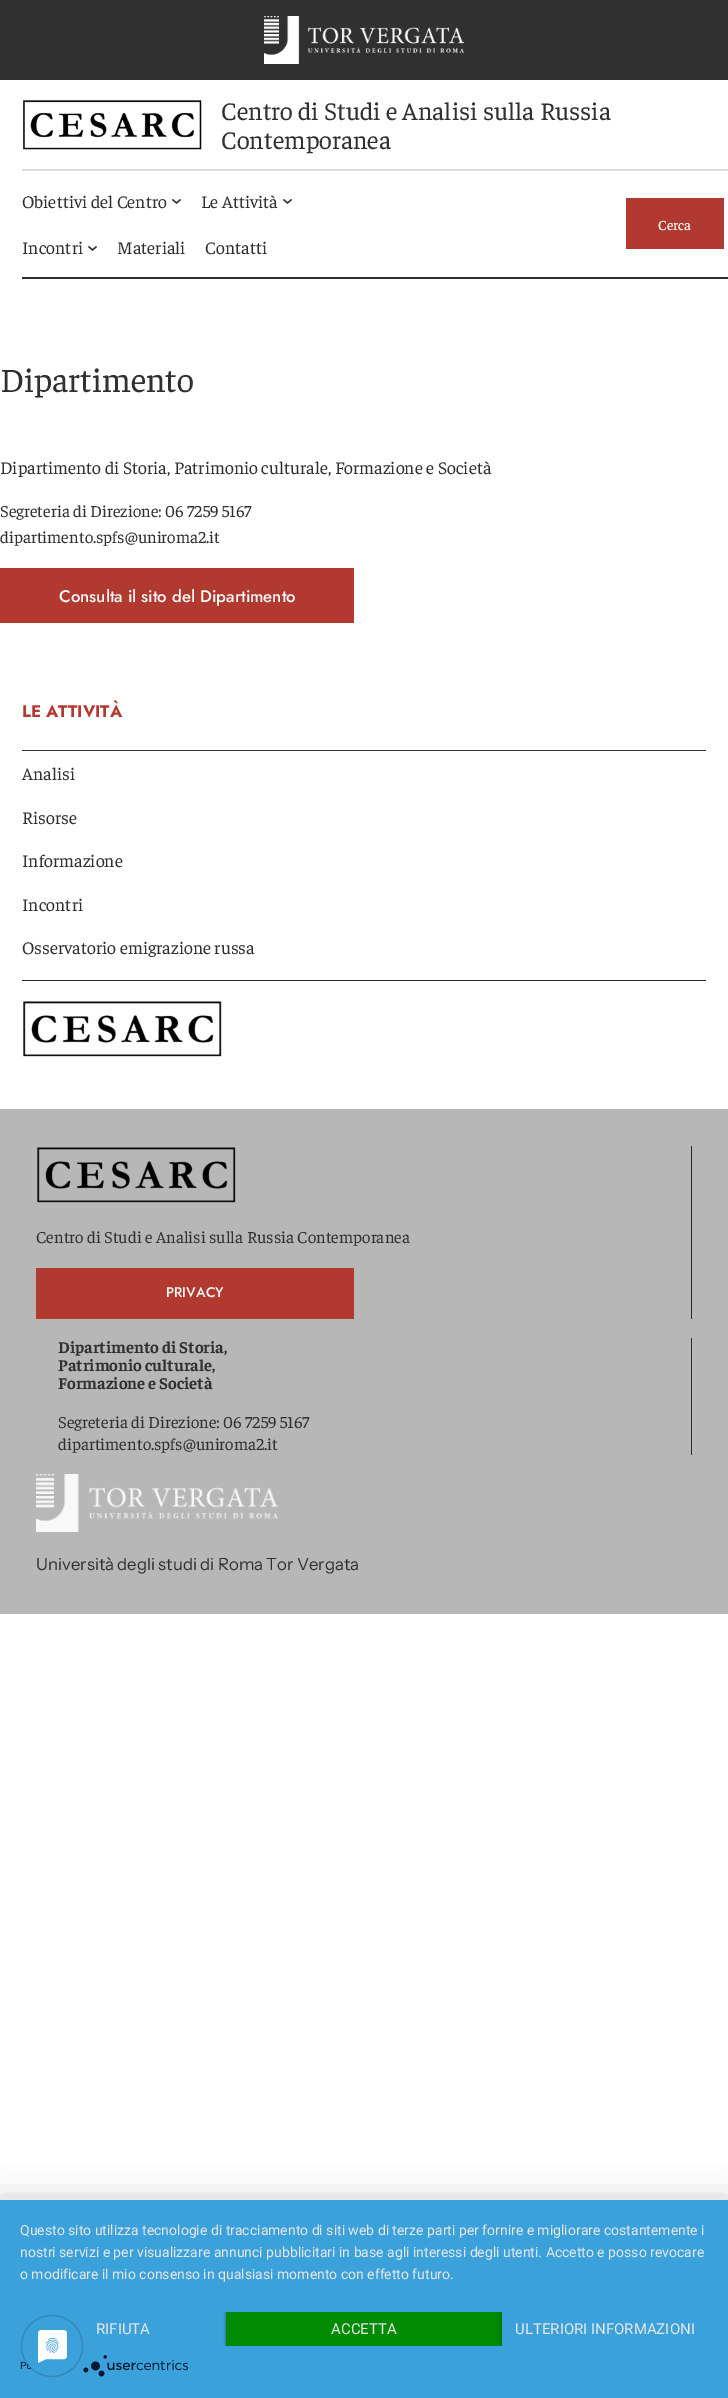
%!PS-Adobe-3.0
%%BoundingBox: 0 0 728 2398
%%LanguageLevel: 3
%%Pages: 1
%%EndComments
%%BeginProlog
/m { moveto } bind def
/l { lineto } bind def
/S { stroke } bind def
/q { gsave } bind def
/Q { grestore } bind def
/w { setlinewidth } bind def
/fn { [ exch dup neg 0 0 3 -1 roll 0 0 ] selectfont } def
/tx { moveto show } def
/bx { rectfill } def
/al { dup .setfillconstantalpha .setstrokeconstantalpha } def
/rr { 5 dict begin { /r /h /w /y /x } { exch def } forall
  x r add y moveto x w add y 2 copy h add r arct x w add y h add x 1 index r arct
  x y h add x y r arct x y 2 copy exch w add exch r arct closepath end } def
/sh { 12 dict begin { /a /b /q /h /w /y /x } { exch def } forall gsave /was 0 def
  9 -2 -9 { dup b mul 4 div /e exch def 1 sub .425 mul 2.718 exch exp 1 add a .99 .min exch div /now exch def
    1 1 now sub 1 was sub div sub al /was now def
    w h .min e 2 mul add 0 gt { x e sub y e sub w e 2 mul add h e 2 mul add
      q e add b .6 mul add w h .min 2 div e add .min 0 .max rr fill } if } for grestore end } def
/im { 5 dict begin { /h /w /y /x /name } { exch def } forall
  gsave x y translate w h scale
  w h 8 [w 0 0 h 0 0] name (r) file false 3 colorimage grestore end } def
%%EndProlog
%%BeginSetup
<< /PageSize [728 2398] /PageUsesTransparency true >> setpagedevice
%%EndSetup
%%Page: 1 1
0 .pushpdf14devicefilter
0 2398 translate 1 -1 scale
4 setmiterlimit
1 setgray
0 0 728 2398 bx
0.188 setgray
0 0 728 80 bx
(image0.raw) 264 16 200 48 im
0.867 setgray
22 169 706 2 bx
(image1.raw) 22 100 180 50 im
/Faustina-Regular 25.4 fn
0.188 setgray
(Centro di Studi e Analisi sulla Russia) 221 120 tx
(Contemporanea) 221 149 tx
22 277 706 2 bx
/Faustina-Regular 17.75 fn
(Obiettivi del Centro) 22 208 tx
1.3 w
172.5 199.5 m 176.5 203 l 180.5 199.5 l S
(Le Attività) 201 208 tx
283.5 199.5 m 287.5 203 l 291.5 199.5 l S
(Incontri) 22 254 tx
88.5 246.5 m 92.5 250 l 96.5 246.5 l S
(Materiali) 117 254 tx
(Contatti) 205 254 tx
0.694 0.224 0.188 setrgbcolor
626 198 98 51 bx
/Faustina-Medium 14 fn
0.976 setgray
(Cerca) 658 230 tx
/Faustina-Regular 34 fn
0.188 setgray
(Dipartimento) 0 392 tx
/Faustina-Regular 17.75 fn
(Dipartimento di Storia, Patrimonio culturale, Formazione e Società) 0 474 tx
/Faustina-Regular 16.8 fn
(Segreteria di Direzione: 06 7259 5167) 0 517 tx
(dipartimento.spfs@uniroma2.it) 0 543 tx
0.694 0.224 0.188 setrgbcolor
0 568 354 55 bx
/Jost-Medium 16.8 fn
0.976 setgray
(Consulta il sito del Dipartimento) 59 602 tx
/Jost-Bold 16.8 fn
0.694 0.224 0.188 setrgbcolor
(LE ATTIVITÀ) 22 717 tx
0.188 setgray
22 750 684 1 bx
/Faustina-Regular 17.75 fn
(Analisi) 22 780 tx
(Risorse) 22 824 tx
(Informazione) 22 867 tx
(Incontri) 22 911 tx
(Osservatorio emigrazione russa) 22 954 tx
22 980 684 1 bx
(image2.raw) 22 1001 200 56 im
0.718 setgray
0 1109 728 505 bx
0.153 setgray
691 1146 1 173 bx
(image3.raw) 37 1147 199 56 im
/Faustina-Regular 16.8 fn
0.188 setgray
(Centro di Studi e Analisi sulla Russia Contemporanea) 36 1243 tx
0.694 0.224 0.188 setrgbcolor
36 1268 318 51 bx
/Jost-Medium 14 fn
0.976 setgray
(PRIVACY) 166 1297 tx
0.188 setgray
691 1338 1 117 bx
/Faustina-Bold 16.5 fn
(Dipartimento di Storia,) 58 1353 tx
(Patrimonio culturale,) 58 1371 tx
(Formazione e Società) 58 1389 tx
/Faustina-Regular 16.8 fn
(Segreteria di Direzione: 06 7259 5167) 58 1428 tx
(dipartimento.spfs@uniroma2.it) 58 1450 tx
(image4.raw) 36 1474 242 58 im
/InstrumentSans-Regular 16.8 fn
(Università degli studi di Roma Tor Vergata) 36 1570 tx
0 setgray
0 2206 728 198 0 18 0.3 sh
0.231 0.631 0.859 setrgbcolor
0 2200 728 198 bx
/Roboto-Regular 14 fn
0.902 setgray
(Questo sito utilizza tecnologie di tracciamento di siti web di terze parti per fornire e migliorare costantemente i) 20 2235 tx
(nostri servizi e per visualizzare annunci pubblicitari in base agli interessi degli utenti. Accetto e posso revocare) 20 2257 tx
(o modificare il mio consenso in qualsiasi momento con effetto futuro.) 20 2279 tx
/Roboto-Regular 15 fn
(RIFIUTA) 96 2334 tx
q
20 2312 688 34 rectclip
0 setgray
226 2313 276 34 0 2 0.4 sh
Q
0 0.545 0.008 setrgbcolor
226 2312 276 34 bx
0.902 setgray
(ACCETTA) 331 2334 tx
q
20 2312 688 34 rectclip
0 setgray
502 2313 206 34 0 2 0.4 sh
Q
0.231 0.631 0.859 setrgbcolor
502 2312 206 34 bx
0.902 setgray
(ULTERIORI INFORMAZIONI) 515 2334 tx
/Roboto-Regular 10 fn
0.008 0.094 0.212 setrgbcolor
(Po) 20 2369 tx
(image5.raw) 83 2355 106 22 im
(image6.raw) 20 2314 64 64 im
.poppdf14devicefilter showpage
%%EOF
